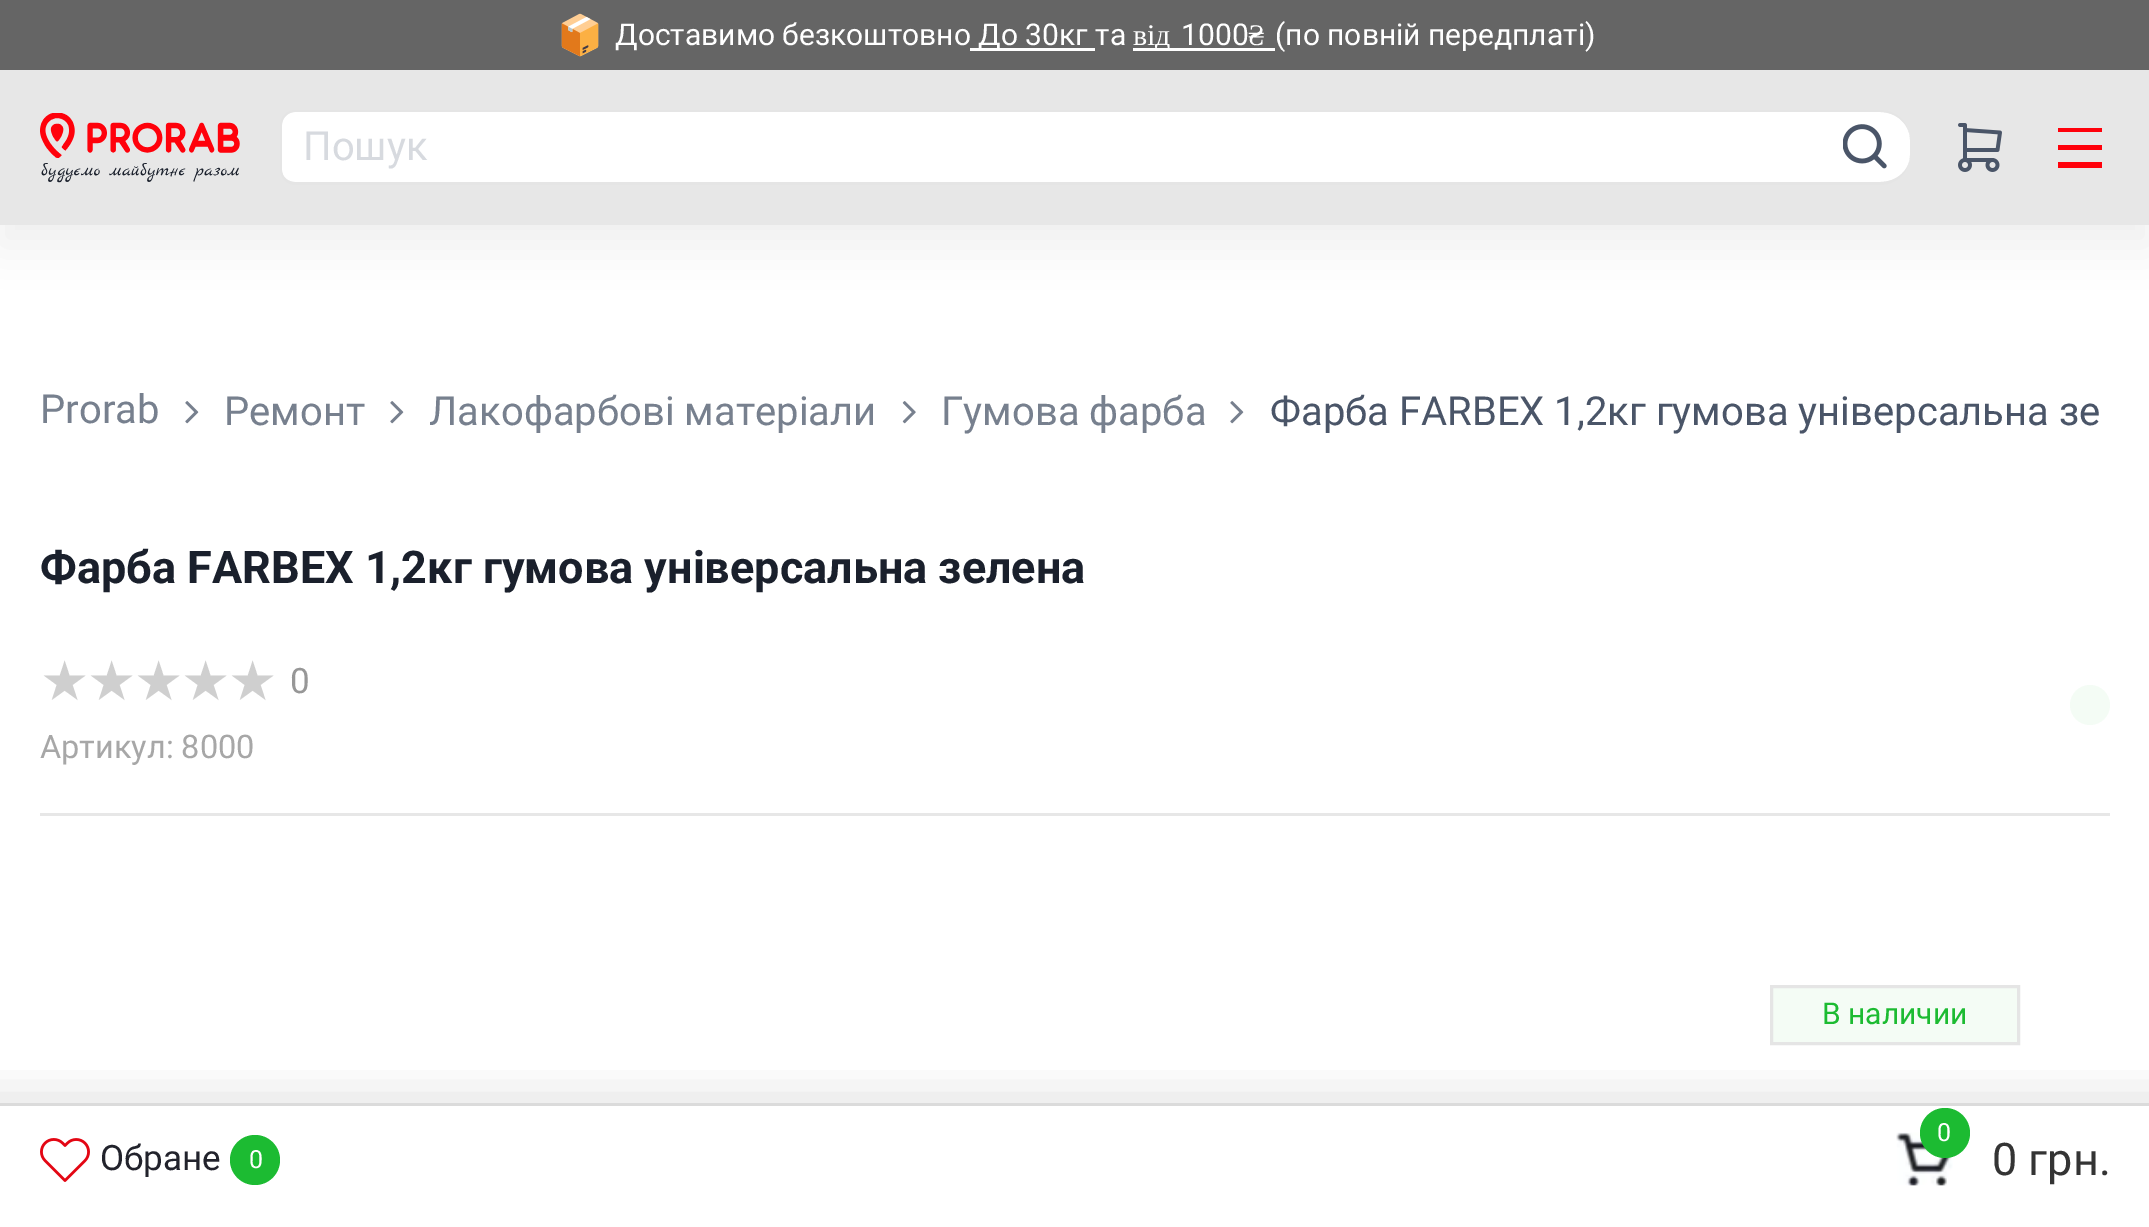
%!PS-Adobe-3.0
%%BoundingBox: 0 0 2149 1227
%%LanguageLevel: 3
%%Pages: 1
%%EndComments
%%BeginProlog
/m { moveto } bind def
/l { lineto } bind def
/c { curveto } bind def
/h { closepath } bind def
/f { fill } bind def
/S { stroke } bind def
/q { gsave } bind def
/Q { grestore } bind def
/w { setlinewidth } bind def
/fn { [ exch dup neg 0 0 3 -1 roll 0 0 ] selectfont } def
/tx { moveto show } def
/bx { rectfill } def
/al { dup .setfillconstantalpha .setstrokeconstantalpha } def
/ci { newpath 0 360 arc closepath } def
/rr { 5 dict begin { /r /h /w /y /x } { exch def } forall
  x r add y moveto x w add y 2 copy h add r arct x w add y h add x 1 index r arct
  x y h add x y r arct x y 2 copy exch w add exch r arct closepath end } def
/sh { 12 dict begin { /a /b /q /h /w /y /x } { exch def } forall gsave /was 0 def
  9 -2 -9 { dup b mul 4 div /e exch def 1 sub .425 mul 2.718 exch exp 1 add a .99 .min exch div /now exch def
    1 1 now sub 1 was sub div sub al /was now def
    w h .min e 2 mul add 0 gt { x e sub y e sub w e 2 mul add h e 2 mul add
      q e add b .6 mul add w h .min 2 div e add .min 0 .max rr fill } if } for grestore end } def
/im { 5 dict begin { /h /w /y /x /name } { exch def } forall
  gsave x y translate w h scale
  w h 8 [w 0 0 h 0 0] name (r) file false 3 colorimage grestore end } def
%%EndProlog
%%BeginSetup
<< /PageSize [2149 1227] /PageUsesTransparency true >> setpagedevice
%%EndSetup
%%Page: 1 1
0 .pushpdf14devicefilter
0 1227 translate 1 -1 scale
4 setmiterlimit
1 setgray
0 0 2149 1227 bx
0.188 0.192 0.2 setrgbcolor
0 20 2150 225 0 20 0.08 sh
0.396 setgray
0 0 2149 70 bx
(image0.raw) 561 13 38 44 im
/Roboto-Regular 30 fn
1 setgray
(Доставимо безкоштовно) 615 45 tx
970 48 125 3 bx
(До 30кг та) 978 45 tx
1133 48 142 3 bx
/LiberationSerif-Regular 30 fn
(від) 1133 45 tx
/Roboto-Regular 30 fn
(1000) 1181 45 tx
/LiberationSerif-Regular 30 fn
(₴) 1248 45 tx
/Roboto-Regular 30 fn
(\(по повній передплаті\)) 1275 45 tx
0.906 setgray
0 70 2149 155 bx
(image1.raw) 40 113 200 70 im
1 setgray
295 112 m 1880 112 l 1897 112 1910 125 1910 140 c 1910 155 l 1910 170 1897 182 1880 182 c 295 182 l 288 182 282 177 282 170 c 282 125 l 282 118 288 112 295 112 c h f
0.898 setgray
295 110 m 1880 110 l 1897 110 1910 123 1910 140 c 1910 155 l 1910 172 1897 185 1880 185 c 295 185 l 287 185 280 178 280 170 c 280 125 l 280 117 287 110 295 110 c h 295 112 m 1880 112 l 1897 112 1910 125 1910 140 c 1910 155 l 1910 170 1897 182 1880 182 c 295 182 l 288 182 282 177 282 170 c 282 125 l 282 118 288 112 295 112 c h eofill
/Roboto-Regular 40 fn
0.843 0.855 0.875 setrgbcolor
(Пошук) 303 160 tx
(image2.raw) 1843 124 44 45 im
(image3.raw) 1958 123 44 49 im
1 0.004 0.043 setrgbcolor
2058 128 m 2102 128 l 2102 132 l 2058 132 l h 2058 145 m 2102 145 l 2102 150 l 2058 150 l h 2058 162 m 2102 162 l 2102 168 l 2058 168 l h f
0.467 0.502 0.557 setrgbcolor
(Prorab) 40 423 tx
(image4.raw) 185 401 14 23 im
(Ремонт) 224 425 tx
(image4.raw) 390 401 14 23 im
(Лакофарбові матеріали) 429 425 tx
(image5.raw) 902 401 14 23 im
(Гумова фарба) 941 425 tx
(image4.raw) 1230 401 14 23 im
0.29 0.333 0.408 setrgbcolor
(Фарба FARBEX 1,2кг гумова універсальна зе) 1270 425 tx
/Roboto-Bold 45 fn
0.102 0.125 0.173 setrgbcolor
(Фарба FARBEX 1,2кг гумова універсальна зелена) 40 583 tx
0.906 setgray
40 813 2070 3 bx
/DejaVuSans-Regular 55 fn
0.812 setgray
(★) 40 700 tx
(★) 87 700 tx
(★) 134 700 tx
(★) 181 700 tx
(★) 228 700 tx
/Roboto-Regular 35 fn
0.592 setgray
(0) 290 693 tx
/Roboto-Regular 32.5 fn
0.655 setgray
(Артикул: 8000) 40 758 tx
0.957 0.988 0.961 setrgbcolor
2090 705 20 ci f
1771.5 986.5 m 2018.5 986.5 l 2018.5 1043.5 l 1771.5 1043.5 l h q f Q
0.898 setgray
3 w
S
/Roboto-Regular 30 fn
0.11 0.733 0.196 setrgbcolor
(В наличии) 1822 1024 tx
q
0 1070 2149 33 rectclip
0.196 setgray
-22 1098 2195 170 0 25 0.15 sh
Q
0.859 setgray
0 1103 2149 3 bx
(image6.raw) 40 1138 50 44 im
/Roboto-Regular 35 fn
0.133 0.137 0.173 setrgbcolor
(Обране) 100 1170 tx
0.11 0.733 0.196 setrgbcolor
255 1160 25 ci f
/Roboto-Regular 25 fn
1 setgray
(0) 249 1168 tx
(image7.raw) 1896 1132 57 54 im
0.11 0.733 0.196 setrgbcolor
1945 1133 25 ci f
1 setgray
(0) 1937 1141 tx
/Roboto-Regular 45 fn
0.204 setgray
(0 грн.) 1992 1175 tx
.poppdf14devicefilter showpage
%%EOF
